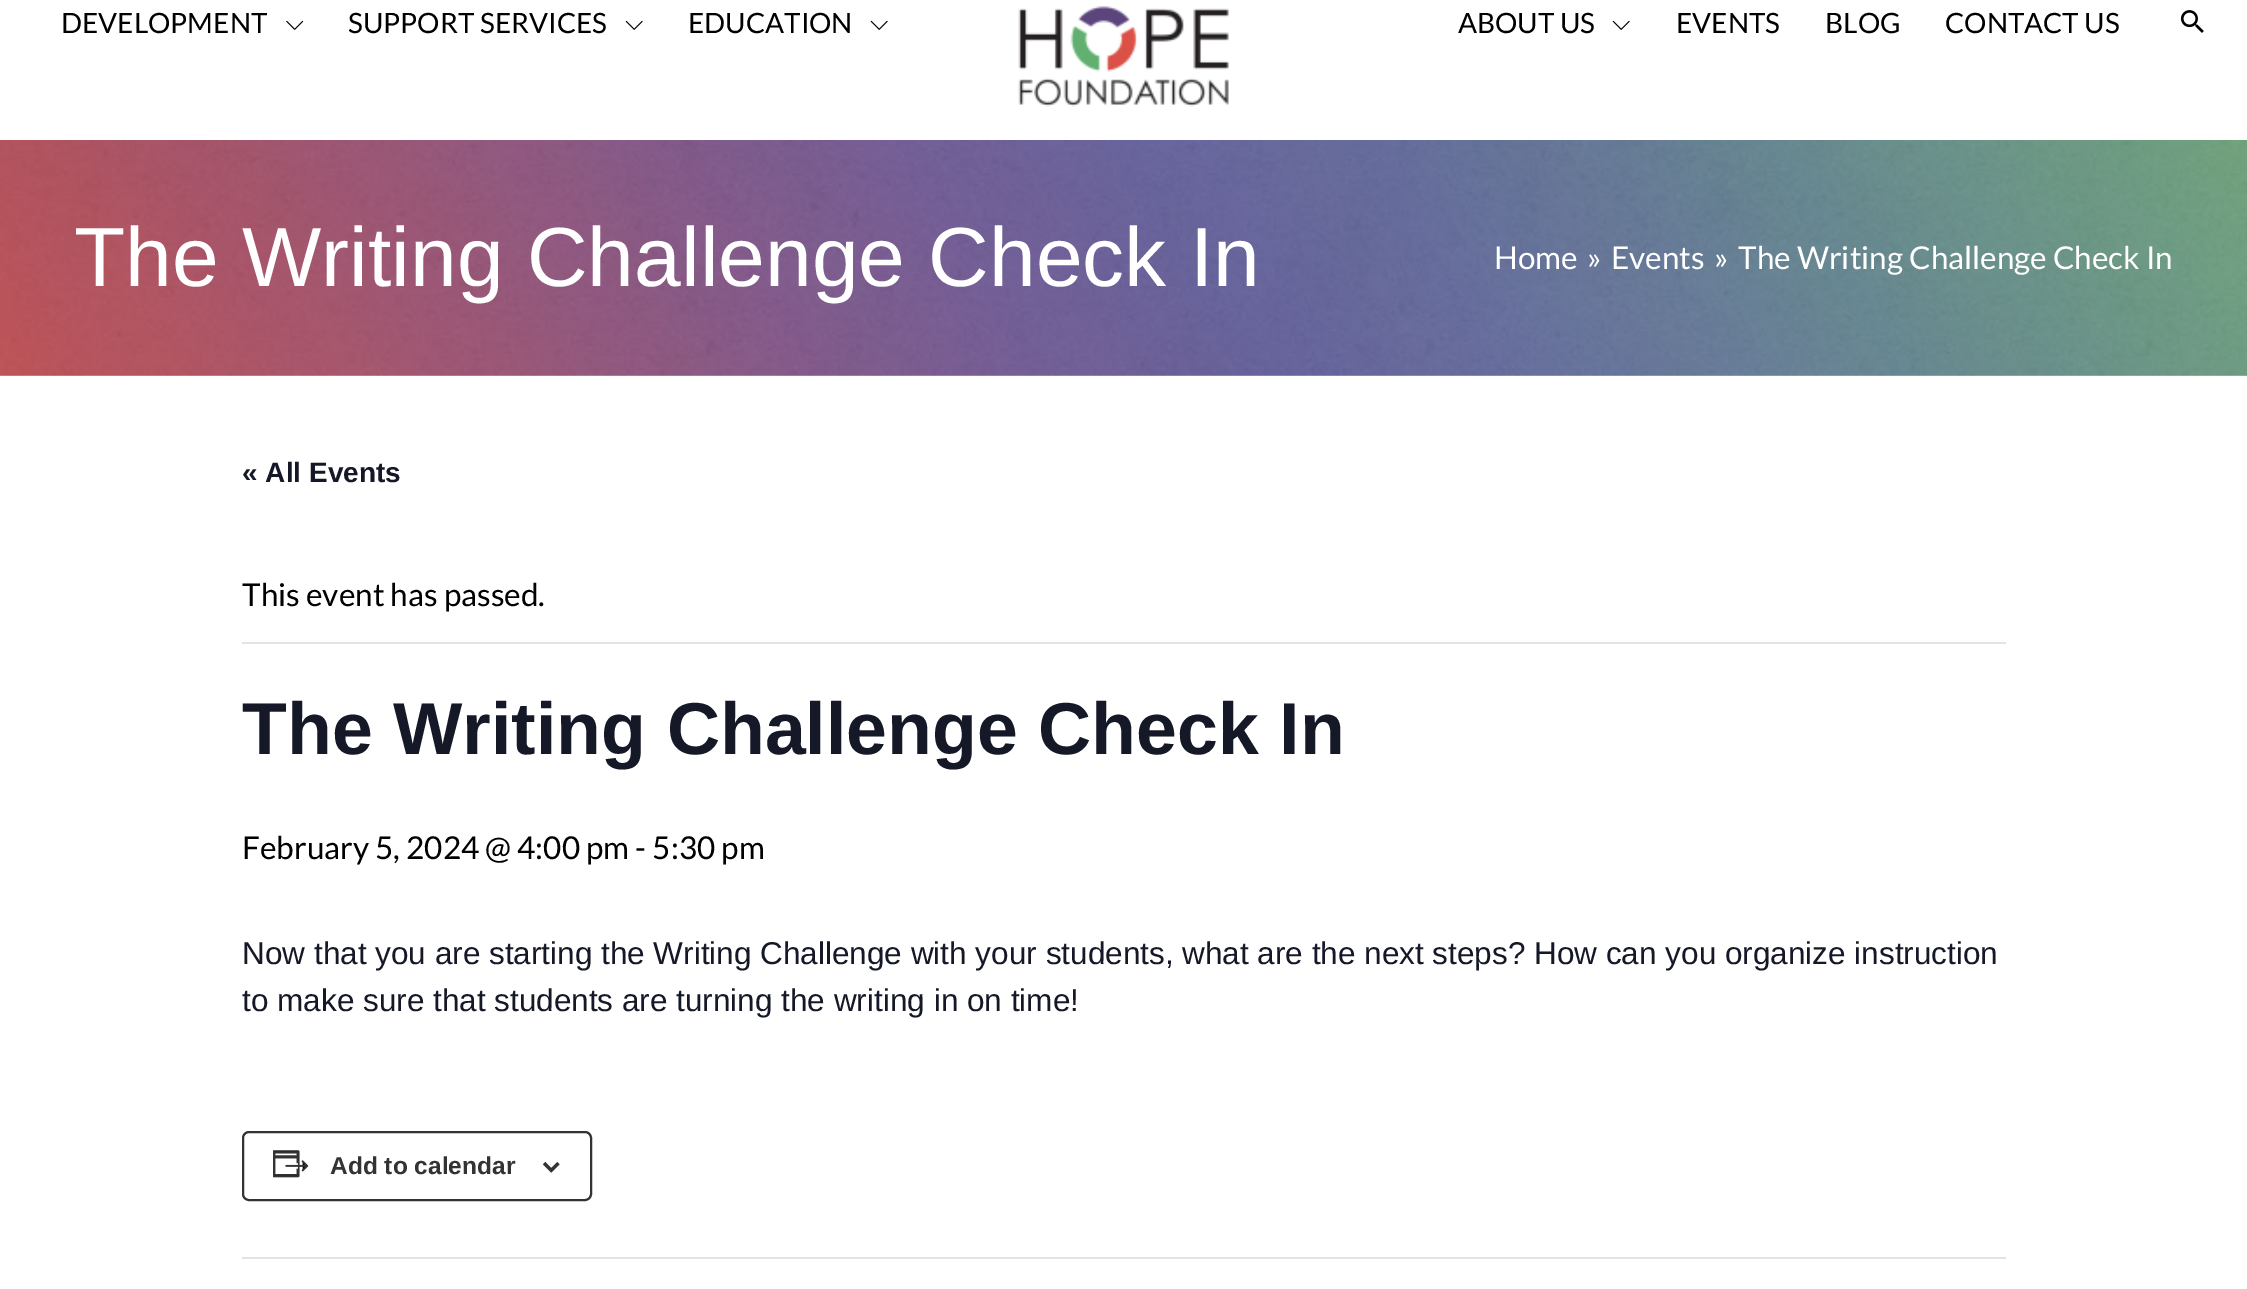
%!PS-Adobe-3.0
%%BoundingBox: 0 0 2247 1289
%%LanguageLevel: 3
%%Pages: 1
%%EndComments
%%BeginProlog
/S { stroke } bind def
/w { setlinewidth } bind def
/fn { [ exch dup neg 0 0 3 -1 roll 0 0 ] selectfont } def
/tx { moveto show } def
/bx { rectfill } def
/rr { 5 dict begin { /r /h /w /y /x } { exch def } forall
  x r add y moveto x w add y 2 copy h add r arct x w add y h add x 1 index r arct
  x y h add x y r arct x y 2 copy exch w add exch r arct closepath end } def
/im { 5 dict begin { /h /w /y /x /name } { exch def } forall
  gsave x y translate w h scale
  w h 8 [w 0 0 h 0 0] name (r) file false 3 colorimage grestore end } def
%%EndProlog
%%BeginSetup
<< /PageSize [2247 1289] >> setpagedevice
%%EndSetup
%%Page: 1 1
0 1289 translate 1 -1 scale
4 setmiterlimit
1 setgray
0 0 2247 1289 bx
/Lato-Regular 28 fn
0 setgray
(DEVELOPMENT) 61 33 tx
(image0.raw) 286 20 18 10 im
(SUPPORT SERVICES) 348 33 tx
(image1.raw) 625 20 18 10 im
(EDUCATION) 688 33 tx
(image1.raw) 870 20 18 10 im
(image2.raw) 1018 6 211 101 im
(ABOUT US) 1458 33 tx
(image1.raw) 1612 20 18 10 im
(EVENTS) 1676 33 tx
(BLOG) 1825 33 tx
(CONTACT US) 1945 33 tx
(image3.raw) 2180 10 24 23 im
(image4.raw) 0 140 2247 236 im
/LiberationSans-Regular 84 fn
1 setgray
(The Writing Challenge Check In) 74 286 tx
/Lato-Regular 31.5 fn
(Home) 1494 269 tx
(») 1587 269 tx
(Events) 1611 269 tx
(») 1714 269 tx
(The Writing Challenge Check In) 1738 269 tx
/LiberationSans-Bold 28 fn
0.078 0.094 0.153 setrgbcolor
(« All Events) 242 482 tx
0.894 setgray
242 642 1764 2 bx
/Lato-Regular 31.5 fn
0 setgray
(This event has passed.) 242 606 tx
/LiberationSans-Bold 73.5 fn
0.078 0.094 0.153 setrgbcolor
(The Writing Challenge Check In) 242 754 tx
/Lato-Regular 31.5 fn
0 setgray
(February 5, 2024 @ 4:00 pm - 5:30 pm) 242 859 tx
/LiberationSans-Regular 31.5 fn
0.078 0.094 0.153 setrgbcolor
(Now that you are starting the Writing Challenge with your students, what are the next steps? How can you organize instruction) 242 964 tx
(to make sure that students are turning the writing in on time!) 242 1011 tx
0.2 setgray
2 w
243 1132 348 68 6 rr S
(image5.raw) 273 1150 36 28 im
/LiberationSans-Bold 24.5 fn
(Add to calendar) 330 1174 tx
(image6.raw) 543 1162 17 11 im
0.894 setgray
242 1257 1764 2 bx
showpage
%%EOF
